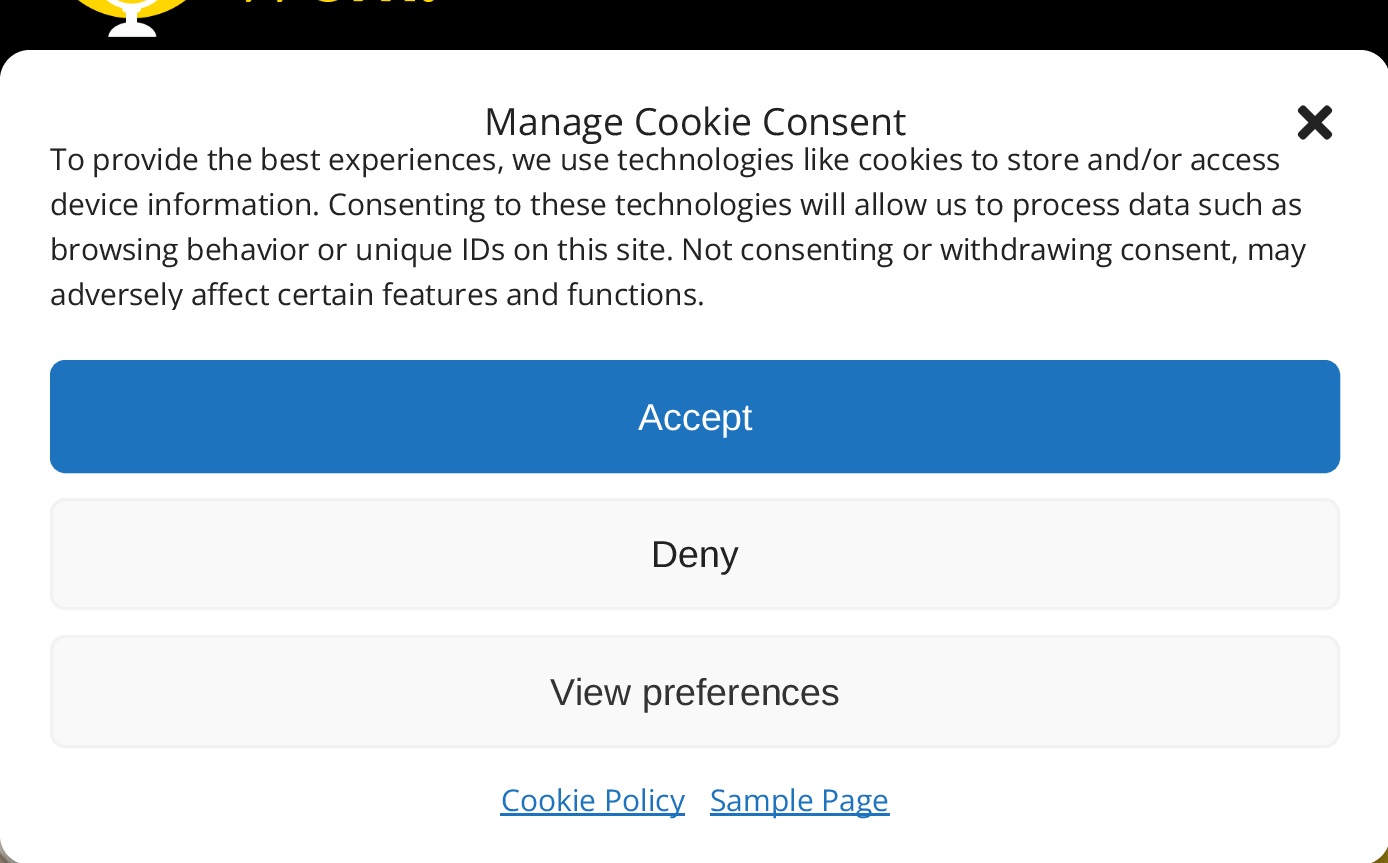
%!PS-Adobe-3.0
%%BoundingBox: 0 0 1388 863
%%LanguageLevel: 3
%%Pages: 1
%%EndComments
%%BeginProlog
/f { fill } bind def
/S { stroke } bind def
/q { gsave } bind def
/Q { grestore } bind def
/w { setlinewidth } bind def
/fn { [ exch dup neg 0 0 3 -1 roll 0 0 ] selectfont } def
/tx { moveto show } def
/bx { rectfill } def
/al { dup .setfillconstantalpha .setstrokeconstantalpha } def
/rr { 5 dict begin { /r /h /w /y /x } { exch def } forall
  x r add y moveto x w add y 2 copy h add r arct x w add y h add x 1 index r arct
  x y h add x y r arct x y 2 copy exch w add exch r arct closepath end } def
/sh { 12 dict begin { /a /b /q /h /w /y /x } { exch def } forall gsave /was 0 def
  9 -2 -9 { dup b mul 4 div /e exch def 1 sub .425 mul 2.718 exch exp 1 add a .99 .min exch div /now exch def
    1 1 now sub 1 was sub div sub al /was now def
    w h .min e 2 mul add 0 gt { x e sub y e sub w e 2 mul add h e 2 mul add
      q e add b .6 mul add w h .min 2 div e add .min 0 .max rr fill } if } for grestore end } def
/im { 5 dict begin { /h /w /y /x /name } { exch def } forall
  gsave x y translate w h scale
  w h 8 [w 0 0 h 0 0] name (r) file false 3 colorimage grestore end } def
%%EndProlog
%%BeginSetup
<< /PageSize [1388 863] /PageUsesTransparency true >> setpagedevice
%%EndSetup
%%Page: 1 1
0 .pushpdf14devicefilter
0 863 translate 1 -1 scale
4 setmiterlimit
1 setgray
0 0 1388 863 bx
0 setgray
0 0 1388 80 bx
(image0.raw) 78 0 356 37 im
(image1.raw) 0 835 1388 28 im
0 65 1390 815 30 7.5 0.23 sh
0 75 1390 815 30 25 0.19 sh
1 setgray
0 50 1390 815 30 rr f
/OpenSans-Regular 37.5 fn
0.133 setgray
(Manage Cookie Consent) 484 135 tx
(image2.raw) 1297 105 36 35 im
/OpenSans-Regular 30 fn
(To provide the best experiences, we use technologies like cookies to store and/or access) 50 170 tx
(device information. Consenting to these technologies will allow us to process data such as) 50 215 tx
(browsing behavior or unique IDs on this site. Not consenting or withdrawing consent, may) 50 260 tx
q
50 138 1290 172 rectclip
(adversely affect certain features and functions.) 50 305 tx
Q
0.118 0.451 0.745 setrgbcolor
51.5 361.5 1287 110 13.5 rr q f Q
3 w
S
/LiberationSans-Regular 37.5 fn
1 setgray
(Accept) 638 430 tx
0.976 setgray
51.5 499.5 1287 109 13.5 rr q f Q
0.949 setgray
S
0.133 setgray
(Deny) 651 567 tx
0.976 setgray
51.5 636.5 1287 110 13.5 rr q f Q
0.949 setgray
S
0.2 setgray
(View preferences) 550 705 tx
0.118 0.451 0.745 setrgbcolor
500 813 185 3 bx
/OpenSans-Regular 30 fn
(Cookie Policy) 501 811 tx
710 813 180 3 bx
(Sample Page) 710 811 tx
.poppdf14devicefilter showpage
%%EOF
